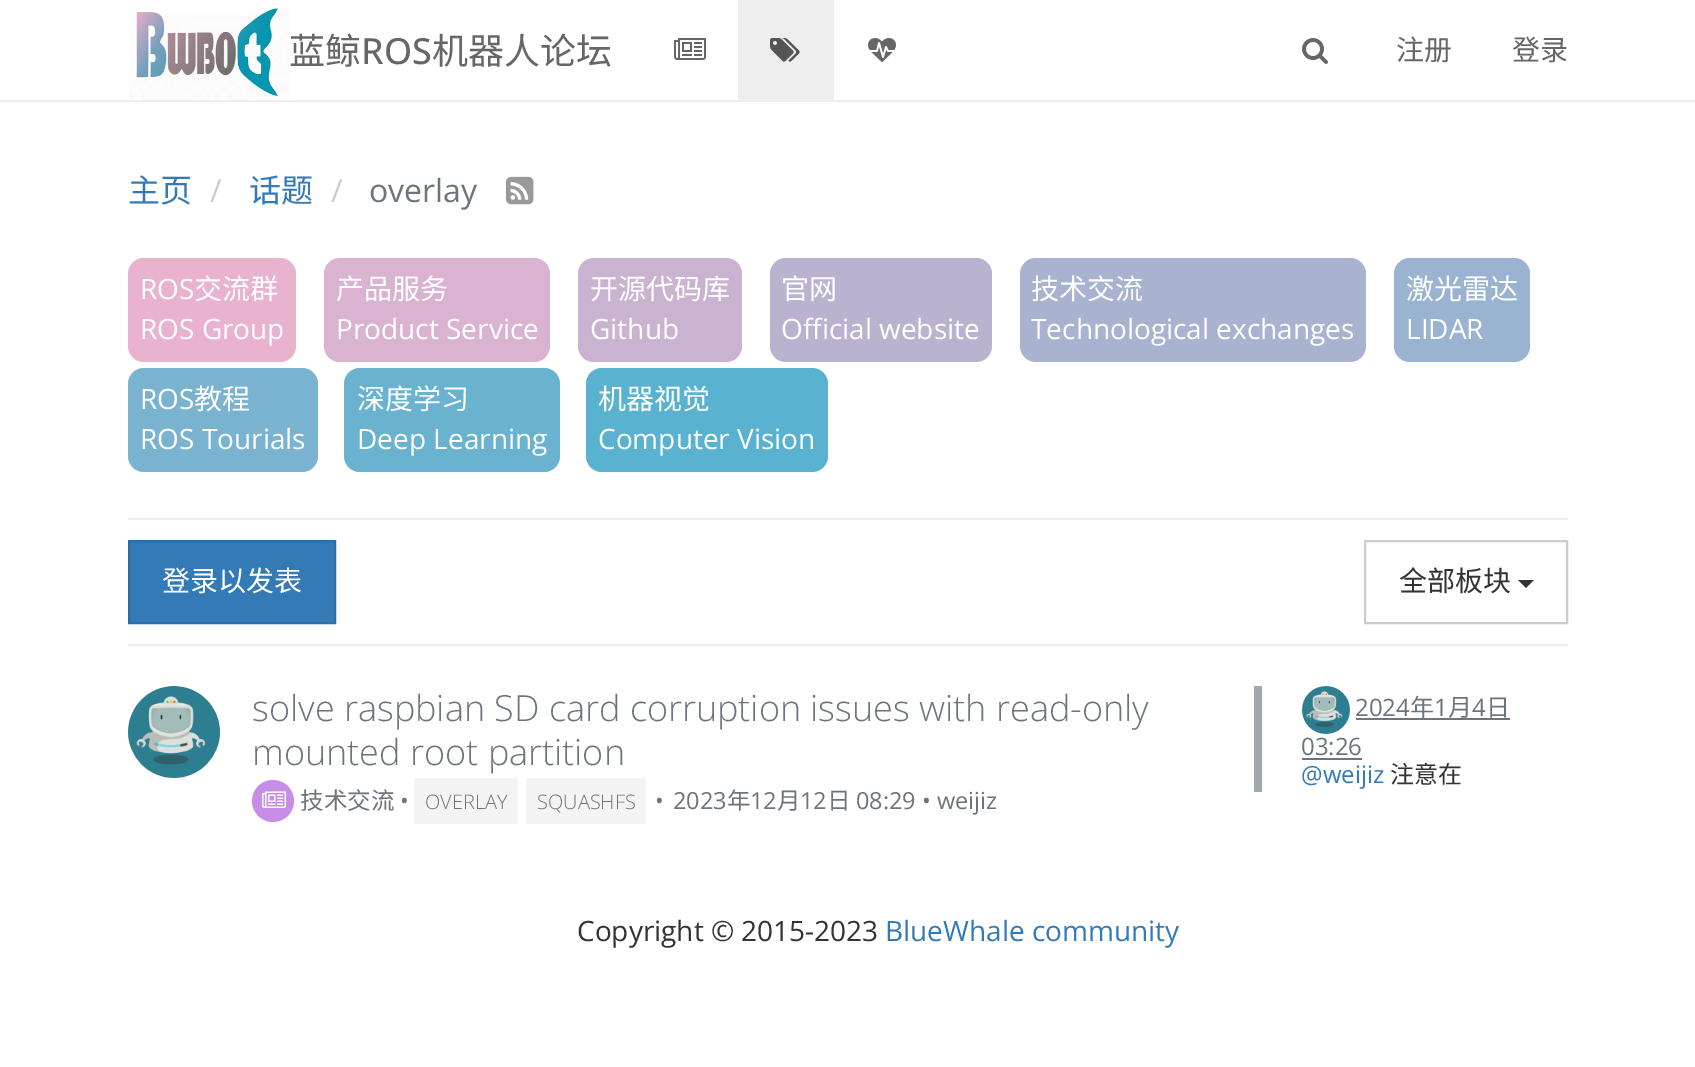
%!PS-Adobe-3.0
%%BoundingBox: 0 0 1695 1067
%%LanguageLevel: 3
%%Pages: 1
%%EndComments
%%BeginProlog
/m { moveto } bind def
/l { lineto } bind def
/h { closepath } bind def
/f { fill } bind def
/S { stroke } bind def
/q { gsave } bind def
/Q { grestore } bind def
/w { setlinewidth } bind def
/fn { [ exch dup neg 0 0 3 -1 roll 0 0 ] selectfont } def
/tx { moveto show } def
/bx { rectfill } def
/ci { newpath 0 360 arc closepath } def
/rr { 5 dict begin { /r /h /w /y /x } { exch def } forall
  x r add y moveto x w add y 2 copy h add r arct x w add y h add x 1 index r arct
  x y h add x y r arct x y 2 copy exch w add exch r arct closepath end } def
/im { 5 dict begin { /h /w /y /x /name } { exch def } forall
  gsave x y translate w h scale
  w h 8 [w 0 0 h 0 0] name (r) file false 3 colorimage grestore end } def
%%EndProlog
%%BeginSetup
<< /PageSize [1695 1067] >> setpagedevice
%%EndSetup
%%Page: 1 1
0 1067 translate 1 -1 scale
4 setmiterlimit
1 setgray
0 0 1695 1067 bx
0.933 setgray
0 100 1695 2 bx
(image0.raw) 129 8 161 92 im
/NotoSansCJKSC-Regular 36 fn
0.4 setgray
(蓝鲸) 289 64 tx
/OpenSans-Medium 36 fn
(ROS) 361 64 tx
/NotoSansCJKSC-Regular 36 fn
(机器人论坛) 432 64 tx
(image1.raw) 674 38 32 22 im
0.933 setgray
738 0 96 100 bx
(image2.raw) 770 38 30 24 im
(image3.raw) 868 38 28 24 im
(image4.raw) 1302 38 26 26 im
/NotoSansCJKSC-Regular 28 fn
0.4 setgray
(注册) 1396 60 tx
(登录) 1512 60 tx
/NotoSansCJKSC-Regular 32 fn
0.2 0.478 0.718 setrgbcolor
(主页) 128 202 tx
/OpenSans-Regular 32 fn
0.8 setgray
(/) 210 202 tx
/NotoSansCJKSC-Regular 32 fn
0.2 0.478 0.718 setrgbcolor
(话题) 249 202 tx
/OpenSans-Regular 32 fn
0.8 setgray
(/) 331 202 tx
0.424 0.459 0.49 setrgbcolor
(overlay) 369 202 tx
(image5.raw) 506 176 28 29 im
0.914 0.702 0.816 setrgbcolor
128 258 168 104 16 rr f
/OpenSans-Regular 28 fn
1 setgray
(ROS) 140 299 tx
/NotoSansCJKSC-Regular 28 fn
(交流群) 194 299 tx
/OpenSans-Regular 28 fn
(ROS Group) 140 339 tx
0.851 0.702 0.816 setrgbcolor
324 258 226 104 16 rr f
/NotoSansCJKSC-Regular 28 fn
1 setgray
(产品服务) 336 299 tx
/OpenSans-Regular 28 fn
(Product Service) 336 339 tx
0.788 0.702 0.816 setrgbcolor
578 258 164 104 16 rr f
/NotoSansCJKSC-Regular 28 fn
1 setgray
(开源代码库) 590 299 tx
/OpenSans-Regular 28 fn
(Github) 590 339 tx
0.725 0.702 0.816 setrgbcolor
770 258 222 104 16 rr f
/NotoSansCJKSC-Regular 28 fn
1 setgray
(官网) 781 299 tx
/OpenSans-Regular 28 fn
(Official website) 781 339 tx
0.663 0.702 0.816 setrgbcolor
1020 258 346 104 16 rr f
/NotoSansCJKSC-Regular 28 fn
1 setgray
(技术交流) 1031 299 tx
/OpenSans-Regular 28 fn
(Technological exchanges) 1031 339 tx
0.6 0.702 0.816 setrgbcolor
1394 258 136 104 16 rr f
/NotoSansCJKSC-Regular 28 fn
1 setgray
(激光雷达) 1406 299 tx
/OpenSans-Regular 28 fn
(LIDAR) 1406 339 tx
0.475 0.702 0.816 setrgbcolor
128 368 190 104 16 rr f
1 setgray
(ROS) 140 409 tx
/NotoSansCJKSC-Regular 28 fn
(教程) 194 409 tx
/OpenSans-Regular 28 fn
(ROS Tourials) 140 449 tx
0.412 0.702 0.816 setrgbcolor
344 368 216 104 16 rr f
/NotoSansCJKSC-Regular 28 fn
1 setgray
(深度学习) 357 409 tx
/OpenSans-Regular 28 fn
(Deep Learning) 357 449 tx
0.349 0.702 0.816 setrgbcolor
586 368 242 104 16 rr f
/NotoSansCJKSC-Regular 28 fn
1 setgray
(机器视觉) 598 409 tx
/OpenSans-Regular 28 fn
(Computer Vision) 598 449 tx
0.933 setgray
128 518 1440 2 bx
128 644 1440 2 bx
0.2 0.478 0.718 setrgbcolor
129 541 m 335 541 l 335 623 l 129 623 l h q f Q
0.18 0.427 0.643 setrgbcolor
2 w
S
/NotoSansCJKSC-Regular 28 fn
1 setgray
(登录以发表) 162 591 tx
0.8 setgray
1365 541 202 82 rectstroke
0.2 setgray
(全部板块) 1399 591 tx
1518 580 m 1534 580 l 1526 588 l h f
(image6.raw) 128 686 92 92 im
/OpenSans-Light 36 fn
0.424 0.459 0.49 setrgbcolor
(solve raspbian SD card corruption issues with read-only) 252 721 tx
(mounted root partition) 252 765 tx
0.784 0.553 0.902 setrgbcolor
273 801 21 ci f
(image7.raw) 262 791 25 17 im
/NotoSansCJKSC-Regular 23.5 fn
0.424 0.459 0.49 setrgbcolor
(技术交流) 300 809 tx
/OpenSans-Regular 23.5 fn
(•) 400 809 tx
0.957 setgray
414 778 104 46 bx
/OpenSans-Light 20 fn
0.424 0.459 0.49 setrgbcolor
(OVERLAY) 425 809 tx
0.957 setgray
526 778 120 46 bx
0.424 0.459 0.49 setrgbcolor
(SQUASHFS) 537 809 tx
/OpenSans-Regular 23.5 fn
(•) 655 809 tx
(2023) 673 809 tx
/NotoSansCJKSC-Regular 23.5 fn
(年) 727 809 tx
/OpenSans-Regular 23.5 fn
(12) 750 809 tx
/NotoSansCJKSC-Regular 23.5 fn
(月) 777 809 tx
/OpenSans-Regular 23.5 fn
(12) 800 809 tx
/NotoSansCJKSC-Regular 23.5 fn
(日) 827 809 tx
/OpenSans-Regular 23.5 fn
(08:29 • weijiz) 856 809 tx
0.631 0.659 0.682 setrgbcolor
1254 686 8 106 bx
(image8.raw) 1302 686 48 48 im
/OpenSans-Regular 24 fn
0.424 0.459 0.49 setrgbcolor
(2024) 1355 716 tx
1356 718 154 2 bx
/NotoSansCJKSC-Regular 24 fn
(年) 1410 716 tx
/OpenSans-Regular 24 fn
(1) 1434 716 tx
/NotoSansCJKSC-Regular 24 fn
(月) 1448 716 tx
/OpenSans-Regular 24 fn
(4) 1472 716 tx
/NotoSansCJKSC-Regular 24 fn
(日) 1486 716 tx
/OpenSans-Regular 24 fn
(03:26) 1301 755 tx
1302 758 60 2 bx
0.2 0.478 0.718 setrgbcolor
(@weijiz) 1301 783 tx
/NotoSansCJKSC-Regular 24 fn
0.2 setgray
(注意在) 1390 783 tx
/OpenSans-Regular 28 fn
(Copyright © 2015-2023) 577 941 tx
0.2 0.478 0.718 setrgbcolor
(BlueWhale community) 885 941 tx
showpage
%%EOF
